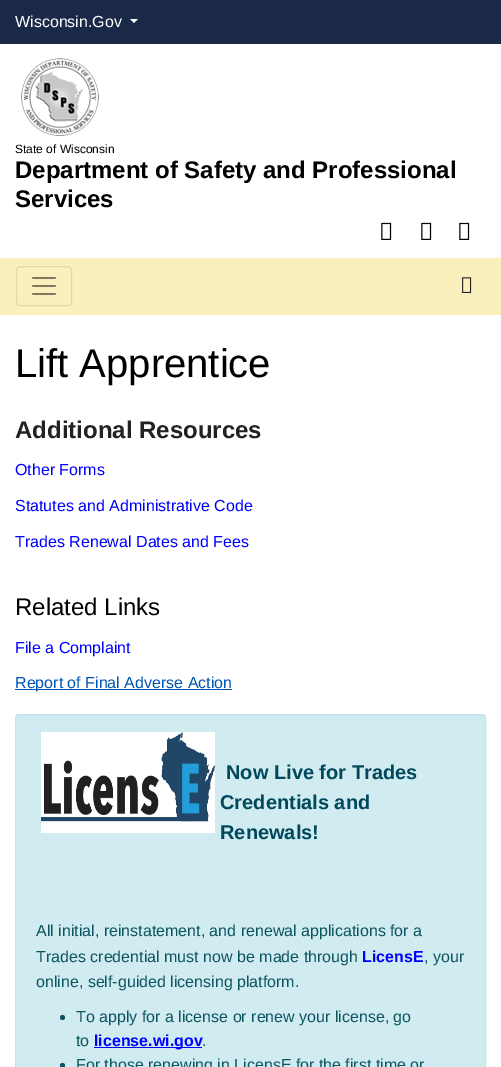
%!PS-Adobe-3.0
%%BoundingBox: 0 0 501 1067
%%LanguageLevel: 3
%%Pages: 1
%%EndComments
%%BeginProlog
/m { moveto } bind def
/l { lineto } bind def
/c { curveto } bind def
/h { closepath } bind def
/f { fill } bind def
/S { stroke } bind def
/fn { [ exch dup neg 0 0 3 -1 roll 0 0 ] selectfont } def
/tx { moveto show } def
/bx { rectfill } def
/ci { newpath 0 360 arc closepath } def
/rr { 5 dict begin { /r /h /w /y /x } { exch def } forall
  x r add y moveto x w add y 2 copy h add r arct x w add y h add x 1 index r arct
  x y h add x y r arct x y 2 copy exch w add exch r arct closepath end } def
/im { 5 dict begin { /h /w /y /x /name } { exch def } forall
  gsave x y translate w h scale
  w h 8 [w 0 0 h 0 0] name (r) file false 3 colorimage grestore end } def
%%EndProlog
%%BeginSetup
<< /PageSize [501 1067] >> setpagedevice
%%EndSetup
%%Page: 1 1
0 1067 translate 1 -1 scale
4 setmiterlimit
1 setgray
0 0 501 1067 bx
0.098 0.161 0.278 setrgbcolor
0 0 501 44 bx
/LiberationSans-Regular 16 fn
1 setgray
(Wisconsin.Gov) 15 27 tx
130 19 m 138 19 l 134 23 l h f
(image0.raw) 21 58 78 78 im
/LiberationSans-Regular 12 fn
0 setgray
(State of Wisconsin) 15 153 tx
/LiberationSans-Bold 24 fn
(Department of Safety and Professional) 15 178 tx
(Services) 15 207 tx
(image1.raw) 381 222 11 18 im
(image1.raw) 421 222 11 18 im
(image1.raw) 459 222 11 18 im
0.98 0.941 0.745 setrgbcolor
0 258 501 57 bx
0.882 0.847 0.671 setrgbcolor
16.5 266.5 55 39 3.5 rr S
(image2.raw) 32 277 24 18 im
(image3.raw) 462 277 10 16 im
/LiberationSans-Regular 40 fn
0 setgray
(Lift Apprentice) 15 377 tx
/LiberationSans-Bold 24 fn
0.133 setgray
(Additional Resources) 15 438 tx
/LiberationSans-Regular 16 fn
0 0 1 setrgbcolor
(Other Forms) 15 475 tx
(Statutes and Administrative Code) 15 511 tx
(Trades Renewal Dates and Fees) 15 547 tx
/LiberationSans-Regular 24 fn
0 setgray
(Related Links) 15 615 tx
/LiberationSans-Regular 16 fn
0 0 1 setrgbcolor
(File a Complaint) 15 653 tx
0 0.337 0.702 setrgbcolor
15 689 217 1 bx
(Report of Final Adverse Action) 15 688 tx
0.82 0.925 0.945 setrgbcolor
19 714 m 482 714 l 484 714 486 716 486 718 c 486 1067 l 15 1067 l 15 718 l 15 716 17 714 19 714 c h f
0.745 0.898 0.922 setrgbcolor
15.5 714.5 470 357 3.5 rr S
(image4.raw) 41 732 174 101 im
/LiberationSans-Bold 20 fn
0 0.282 0.357 setrgbcolor
(Now Live for Trades) 226 779 tx
(Credentials and) 220 809 tx
(Renewals!) 220 839 tx
/LiberationSans-Regular 16 fn
0.047 0.329 0.376 setrgbcolor
(All initial, reinstatement, and renewal applications for a) 36 936 tx
(Trades credential must now be made through) 36 962 tx
/LiberationSans-Bold 16 fn
0 0 1 setrgbcolor
(LicensE) 362 962 tx
/LiberationSans-Regular 16 fn
0.047 0.329 0.376 setrgbcolor
(, your) 424 962 tx
(online, self-guided licensing platform.) 36 987 tx
62.5 1017.5 2.5 ci f
(To apply for a license or renew your license, go) 76 1022 tx
(to) 76 1046 tx
0 0 1 setrgbcolor
94 1047 108 1 bx
/LiberationSans-Bold 16 fn
(license.wi.gov) 94 1046 tx
/LiberationSans-Regular 16 fn
0.047 0.329 0.376 setrgbcolor
(.) 202 1046 tx
62.5 1065.5 2.5 ci f
(For those renewing in LicensE for the first time or) 76 1070 tx
showpage
%%EOF
